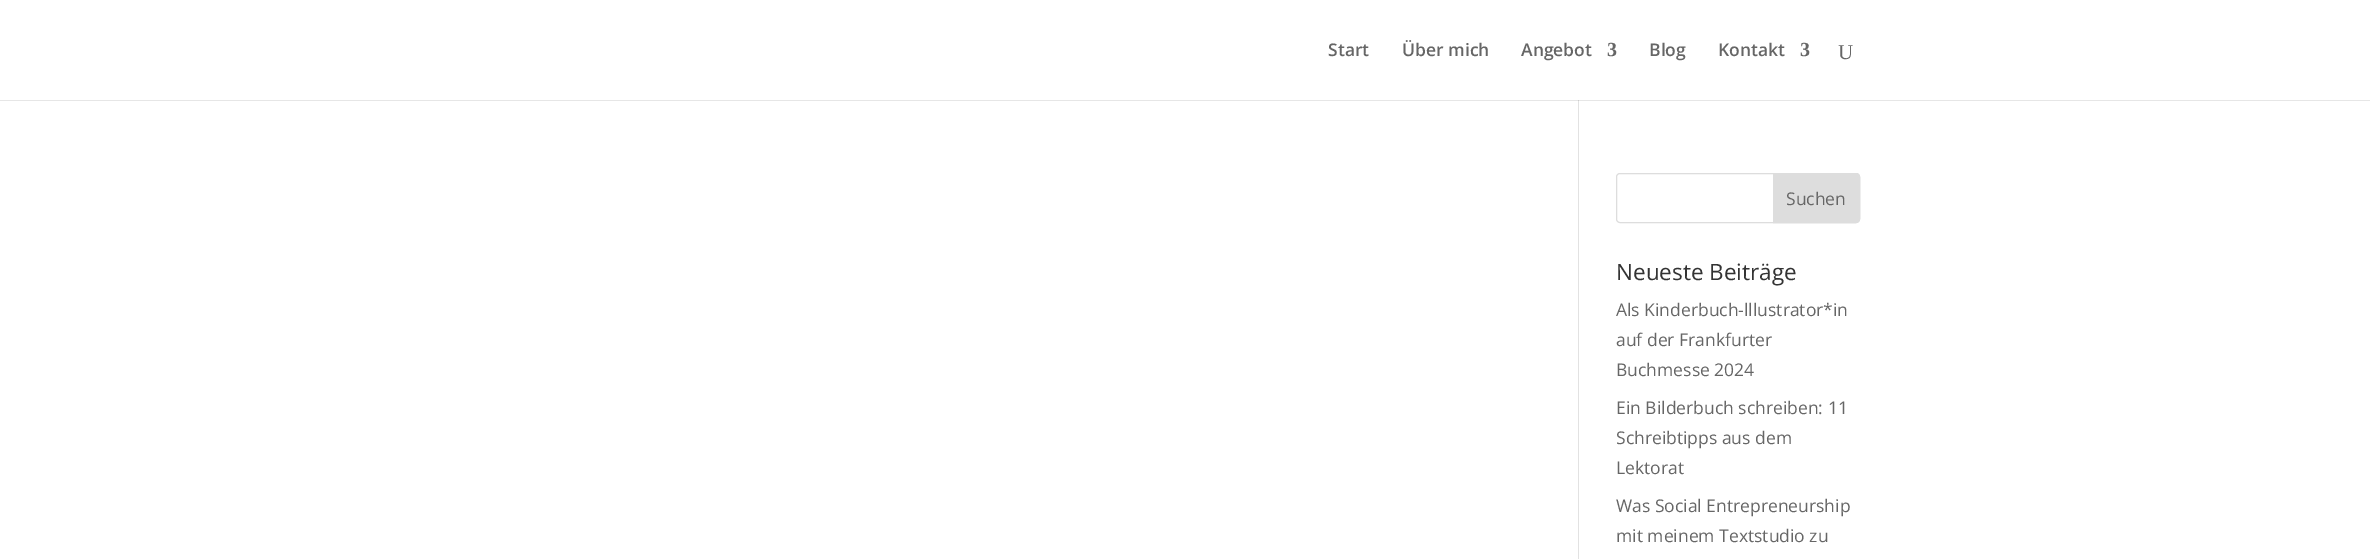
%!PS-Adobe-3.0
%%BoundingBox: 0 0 2370 559
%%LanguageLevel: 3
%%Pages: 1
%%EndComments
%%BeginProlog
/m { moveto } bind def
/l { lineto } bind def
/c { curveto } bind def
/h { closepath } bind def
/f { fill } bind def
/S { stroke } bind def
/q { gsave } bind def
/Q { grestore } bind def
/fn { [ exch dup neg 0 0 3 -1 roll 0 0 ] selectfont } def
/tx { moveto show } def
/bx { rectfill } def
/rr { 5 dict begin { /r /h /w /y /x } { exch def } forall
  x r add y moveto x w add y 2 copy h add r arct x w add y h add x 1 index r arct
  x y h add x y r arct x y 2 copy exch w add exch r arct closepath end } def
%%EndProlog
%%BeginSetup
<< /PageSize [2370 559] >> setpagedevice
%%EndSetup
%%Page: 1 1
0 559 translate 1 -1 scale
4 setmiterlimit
1 setgray
0 0 2370 559 bx
0.902 setgray
0 100 2370 1 bx
/OpenSans-SemiBold 17.5 fn
0.4 setgray
(Start) 1328 56 tx
(Über mich) 1402 56 tx
(Angebot) 1521 56 tx
/LiberationSerif-Bold 20 fn
(3) 1607 56 tx
/OpenSans-SemiBold 17.5 fn
(Blog) 1649 56 tx
(Kontakt) 1718 56 tx
/LiberationSerif-Bold 20 fn
(3) 1800 56 tx
/LiberationSerif-Regular 21 fn
(U) 1838 59 tx
0.886 setgray
1578 100 1 459 bx
0.796 setgray
1578 100 1 1 bx
0.867 setgray
1616.5 173.5 243 49 3.5 rr S
1773.5 173.5 m 1856 173.5 l 1858 173.5 1859.5 175 1859.5 177 c 1859.5 219 l 1859.5 221 1858 222.5 1856 222.5 c 1773.5 222.5 l h q f Q
S
/OpenSans-Regular 17.5 fn
0.4 setgray
(Suchen) 1786 205 tx
/OpenSans-Regular 22.5 fn
0.2 setgray
(Neueste Beiträge) 1616 280 tx
/OpenSans-Regular 17.5 fn
0.4 setgray
(Als Kinderbuch-lllustrator*in) 1616 316 tx
(auf der Frankfurter) 1616 346 tx
(Buchmesse 2024) 1616 376 tx
(Ein Bilderbuch schreiben: 11) 1616 414 tx
(Schreibtipps aus dem) 1616 444 tx
(Lektorat) 1616 474 tx
(Was Social Entrepreneurship) 1616 512 tx
(mit meinem Textstudio zu) 1616 542 tx
showpage
%%EOF
